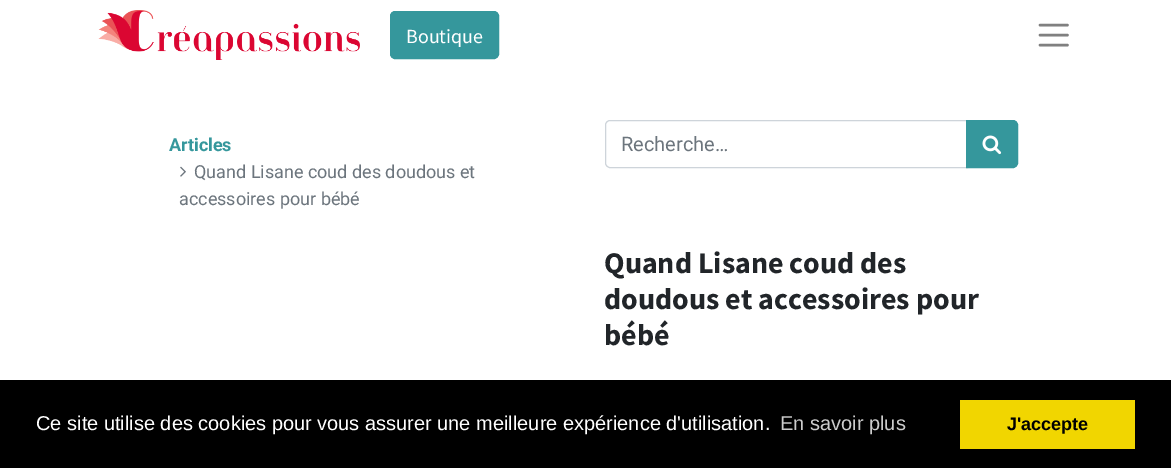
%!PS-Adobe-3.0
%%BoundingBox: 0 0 1171 468
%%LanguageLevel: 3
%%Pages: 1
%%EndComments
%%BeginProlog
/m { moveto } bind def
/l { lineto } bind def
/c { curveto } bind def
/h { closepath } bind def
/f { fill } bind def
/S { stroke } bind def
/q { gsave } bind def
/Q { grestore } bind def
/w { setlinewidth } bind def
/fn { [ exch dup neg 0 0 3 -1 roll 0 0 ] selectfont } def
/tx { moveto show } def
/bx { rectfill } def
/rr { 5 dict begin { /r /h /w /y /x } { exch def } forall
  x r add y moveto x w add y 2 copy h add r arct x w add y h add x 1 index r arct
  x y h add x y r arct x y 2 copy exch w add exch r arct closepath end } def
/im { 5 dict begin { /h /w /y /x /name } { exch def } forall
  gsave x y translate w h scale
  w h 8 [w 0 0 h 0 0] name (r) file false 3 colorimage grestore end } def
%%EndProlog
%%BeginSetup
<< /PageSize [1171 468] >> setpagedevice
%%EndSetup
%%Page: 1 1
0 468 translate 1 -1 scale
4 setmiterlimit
1 setgray
0 0 1171 468 bx
(image0.raw) 98 10 262 50 im
0.208 0.592 0.612 setrgbcolor
390.5 11.5 108 47 4.5 rr q f Q
S
/SourceSansPro-Regular 20 fn
1 setgray
(Boutique) 406 43 tx
0.502 setgray
2.5 w
1 setlinecap
1040 25 m 1067.5 25 l 1040 35 m 1067.5 35 l 1040 45 m 1067.5 45 l S
/Roboto-Bold 18 fn
0.208 0.592 0.612 setrgbcolor
(Articles) 169 151 tx
(image1.raw) 180 166 6 11 im
/Roboto-Regular 18 fn
0.424 0.459 0.49 setrgbcolor
(Quand Lisane coud des doudous et) 194 178 tx
(accessoires pour bébé) 179 205 tx
0.808 0.831 0.855 setrgbcolor
1 w
0 setlinecap
610 120.5 m 967.5 120.5 l 967.5 167.5 l 610 167.5 l 607.5 167.5 605.5 165.5 605.5 163 c 605.5 125 l 605.5 122.5 607.5 120.5 610 120.5 c h S
/Roboto-Regular 20 fn
0.424 0.459 0.49 setrgbcolor
(Recherche…) 621 151 tx
0.208 0.592 0.612 setrgbcolor
966.5 120.5 m 1013 120.5 l 1015.5 120.5 1017.5 122.5 1017.5 125 c 1017.5 163 l 1017.5 165.5 1015.5 167.5 1013 167.5 c 966.5 167.5 l h q f Q
S
(image2.raw) 982 135 20 20 im
/SourceSansPro-Bold 30 fn
0.129 0.145 0.161 setrgbcolor
(Quand Lisane coud des) 604 273 tx
(doudous et accessoires pour) 604 309 tx
(bébé) 604 345 tx
0 setgray
0 380 1171 88 bx
/LiberationSans-Regular 20 fn
1 setgray
(Ce site utilise des cookies pour vous assurer une meilleure expérience d'utilisation.) 36 430 tx
0.8 setgray
(En savoir plus) 780 430 tx
0.945 0.839 0 setrgbcolor
960 400 175 49 bx
/LiberationSans-Bold 18 fn
0 setgray
(J'accepte) 1007 430 tx
showpage
%%EOF
